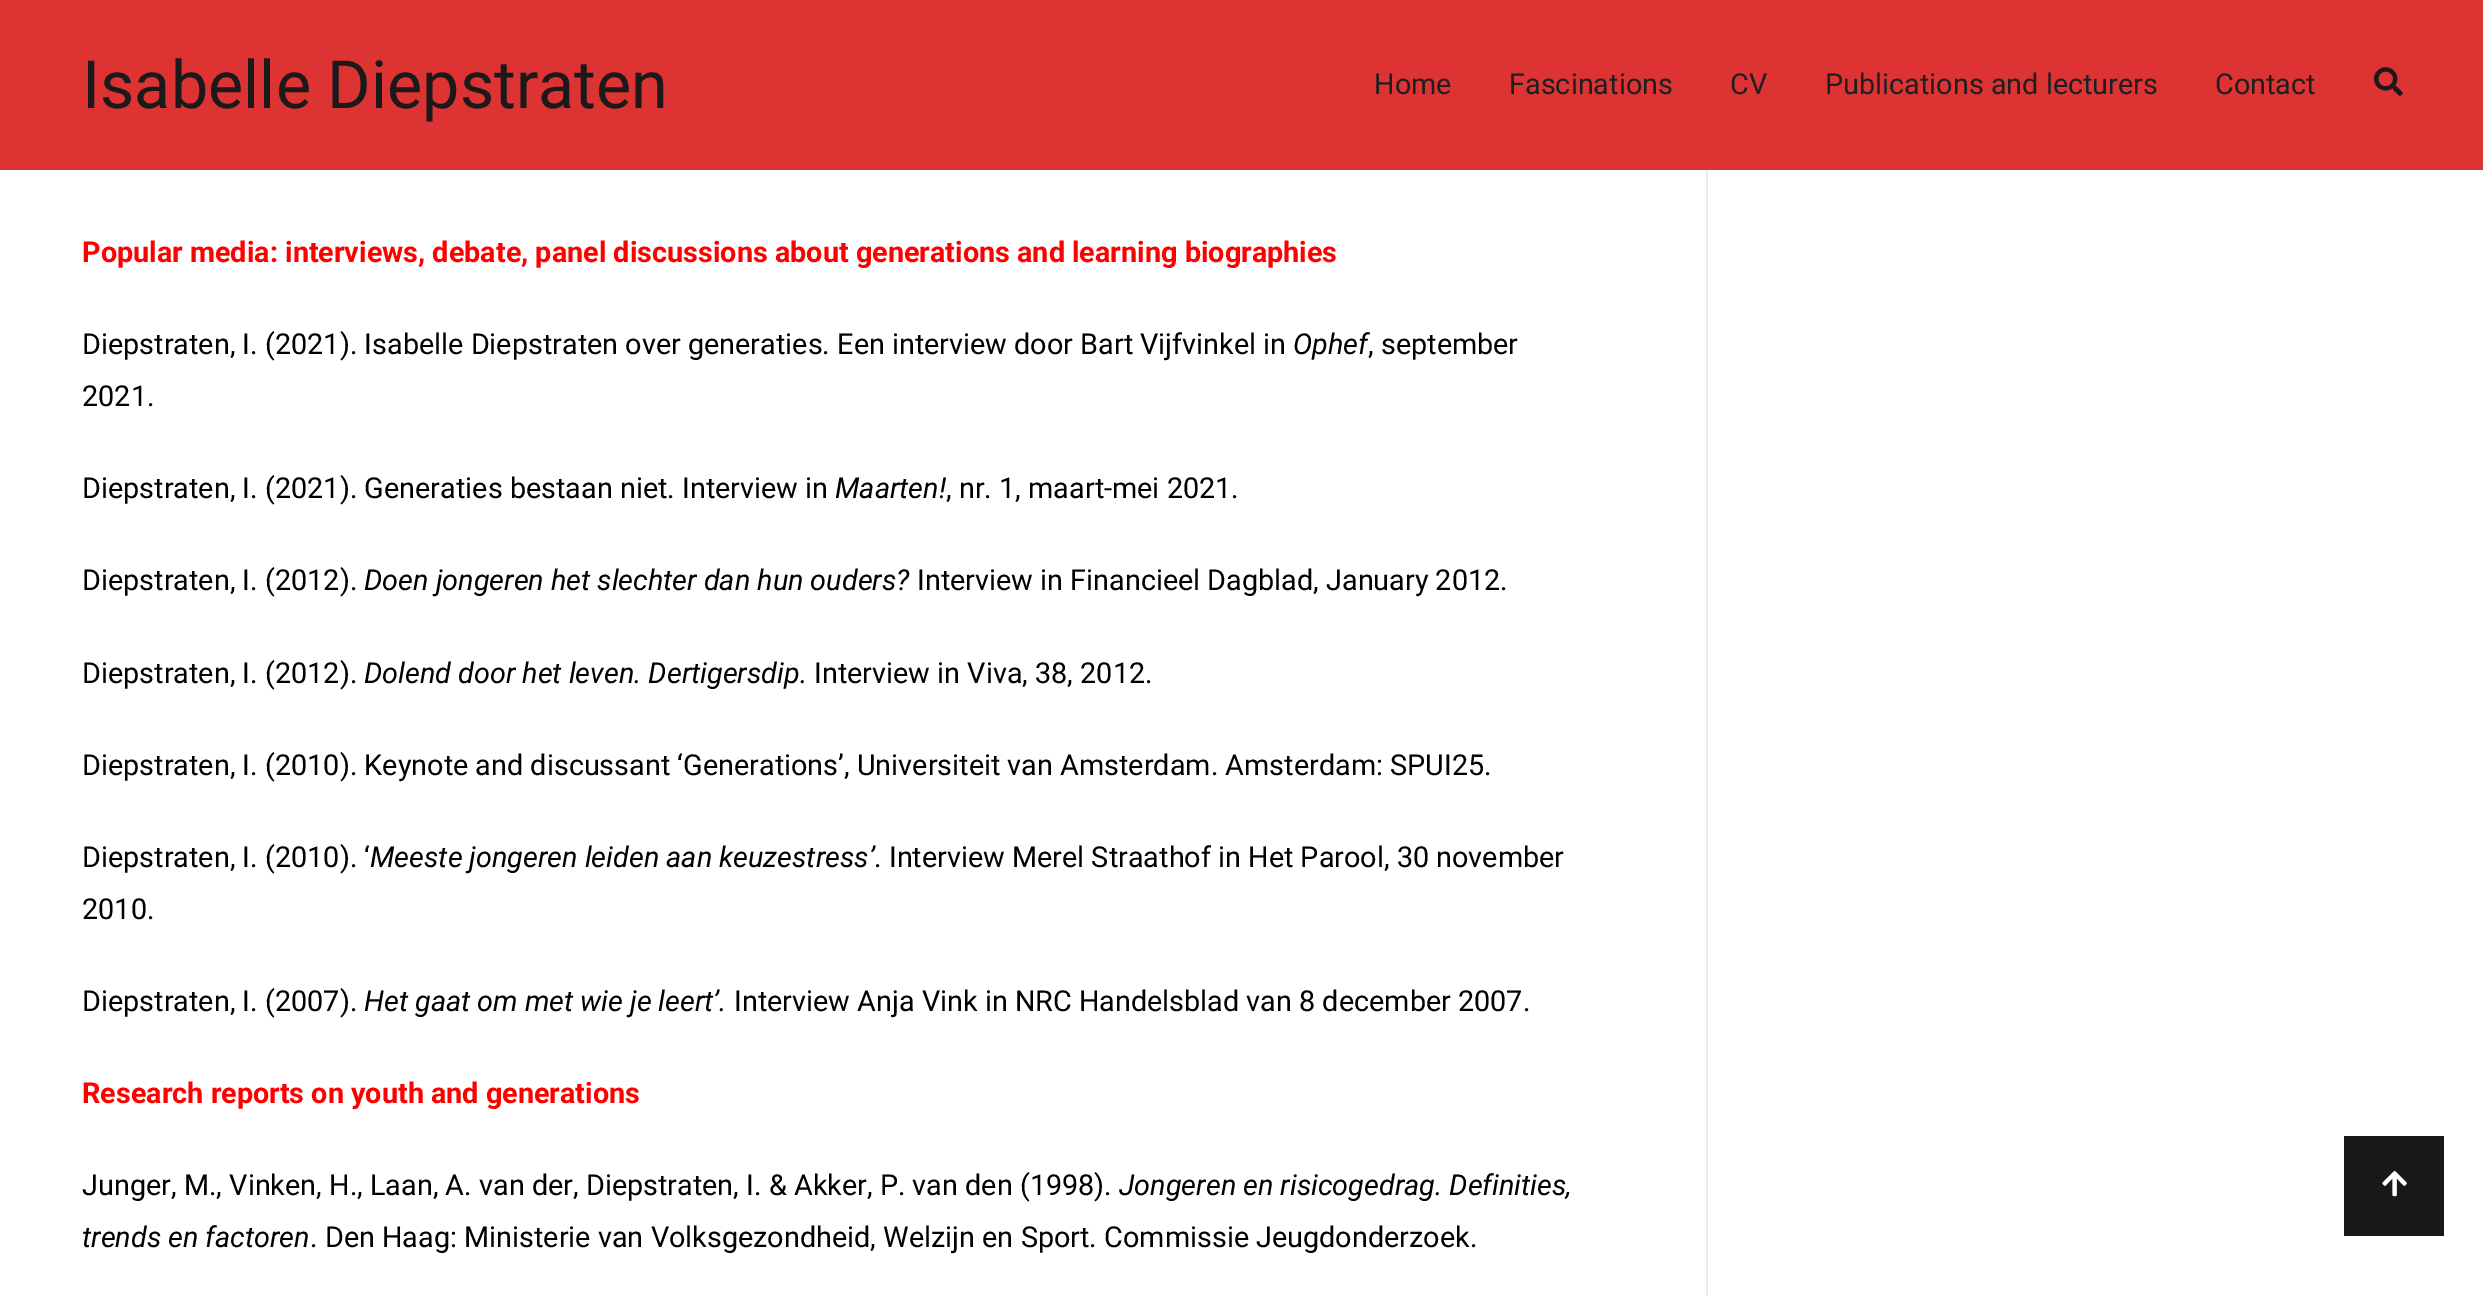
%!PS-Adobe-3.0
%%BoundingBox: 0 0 2483 1296
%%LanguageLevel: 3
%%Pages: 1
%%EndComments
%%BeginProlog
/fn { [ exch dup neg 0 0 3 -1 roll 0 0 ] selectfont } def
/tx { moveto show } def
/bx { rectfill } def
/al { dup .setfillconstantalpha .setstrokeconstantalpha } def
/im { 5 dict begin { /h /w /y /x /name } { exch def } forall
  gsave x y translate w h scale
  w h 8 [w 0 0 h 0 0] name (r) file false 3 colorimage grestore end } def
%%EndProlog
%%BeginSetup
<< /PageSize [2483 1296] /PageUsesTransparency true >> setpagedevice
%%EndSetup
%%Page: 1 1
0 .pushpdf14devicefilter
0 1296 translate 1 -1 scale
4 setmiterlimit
1 setgray
0 0 2483 1296 bx
0.914 0.925 0.937 setrgbcolor
1706 0 2 1296 bx
0.97 al
0.867 0.2 0.2 setrgbcolor
0 0 2483 170 bx
0 0 2483 170 bx
/Roboto-Regular 66.5 fn
1 al
0.11 0.098 0.106 setrgbcolor
(Isabelle Diepstraten) 82 108 tx
/Roboto-Regular 28.8 fn
0.114 0.122 0.129 setrgbcolor
(Home) 1374 94 tx
(Fascinations) 1509 94 tx
(CV) 1730 94 tx
(Publications and lecturers) 1825 94 tx
(Contact) 2215 94 tx
(image0.raw) 2374 67 29 29 im
/Roboto-Bold 28.8 fn
1 0 0 setrgbcolor
(Popular media: interviews, debate, panel discussions about generations and learning biographies) 82 262 tx
/Roboto-Regular 28.8 fn
0 setgray
(Diepstraten, I. \(2021\). Isabelle Diepstraten over generaties. Een interview door Bart Vijfvinkel in) 82 354 tx
/Roboto-Italic 28.8 fn
(Ophef) 1293 354 tx
/Roboto-Regular 28.8 fn
(, september) 1368 354 tx
(2021.) 82 406 tx
(Diepstraten, I. \(2021\). Generaties bestaan niet. Interview in) 82 498 tx
/Roboto-Italic 28.8 fn
(Maarten!) 835 498 tx
/Roboto-Regular 28.8 fn
(, nr. 1, maart-mei 2021.) 946 498 tx
(Diepstraten, I. \(2012\).) 82 590 tx
/Roboto-Italic 28.8 fn
(Doen jongeren het slechter dan hun ouders?) 364 590 tx
/Roboto-Regular 28.8 fn
(Interview in Financieel Dagblad, January 2012.) 917 590 tx
(Diepstraten, I. \(2012\).) 82 683 tx
/Roboto-Italic 28.8 fn
(Dolend door het leven. Dertigersdip.) 364 683 tx
/Roboto-Regular 28.8 fn
(Interview in Viva, 38, 2012.) 814 683 tx
(Diepstraten, I. \(2010\). Keynote and discussant ‘Generations’, Universiteit van Amsterdam. Amsterdam: SPUI25.) 82 775 tx
(Diepstraten, I. \(2010\). ‘) 82 867 tx
/Roboto-Italic 28.8 fn
(Meeste jongeren leiden aan keuzestress’) 370 867 tx
/Roboto-Regular 28.8 fn
(. Interview Merel Straathof in Het Parool, 30 november) 874 867 tx
(2010.) 82 919 tx
(Diepstraten, I. \(2007\).) 82 1011 tx
/Roboto-Italic 28.8 fn
(Het gaat om met wie je leert’.) 364 1011 tx
/Roboto-Regular 28.8 fn
(Interview Anja Vink in NRC Handelsblad van 8 december 2007.) 734 1011 tx
/Roboto-Bold 28.8 fn
1 0 0 setrgbcolor
(Research reports on youth and generations) 82 1103 tx
/Roboto-Regular 28.8 fn
0 setgray
(Junger, M., Vinken, H., Laan, A. van der, Diepstraten, I. & Akker, P. van den \(1998\).) 82 1195 tx
/Roboto-Italic 28.8 fn
(Jongeren en risicogedrag. Definities,) 1119 1195 tx
(trends en factoren) 82 1247 tx
/Roboto-Regular 28.8 fn
(. Den Haag: Ministerie van Volksgezondheid, Welzijn en Sport. Commissie Jeugdonderzoek.) 310 1247 tx
0.086 0.094 0.102 setrgbcolor
2344 1136 100 100 bx
(image1.raw) 2382 1171 25 26 im
.poppdf14devicefilter showpage
%%EOF
